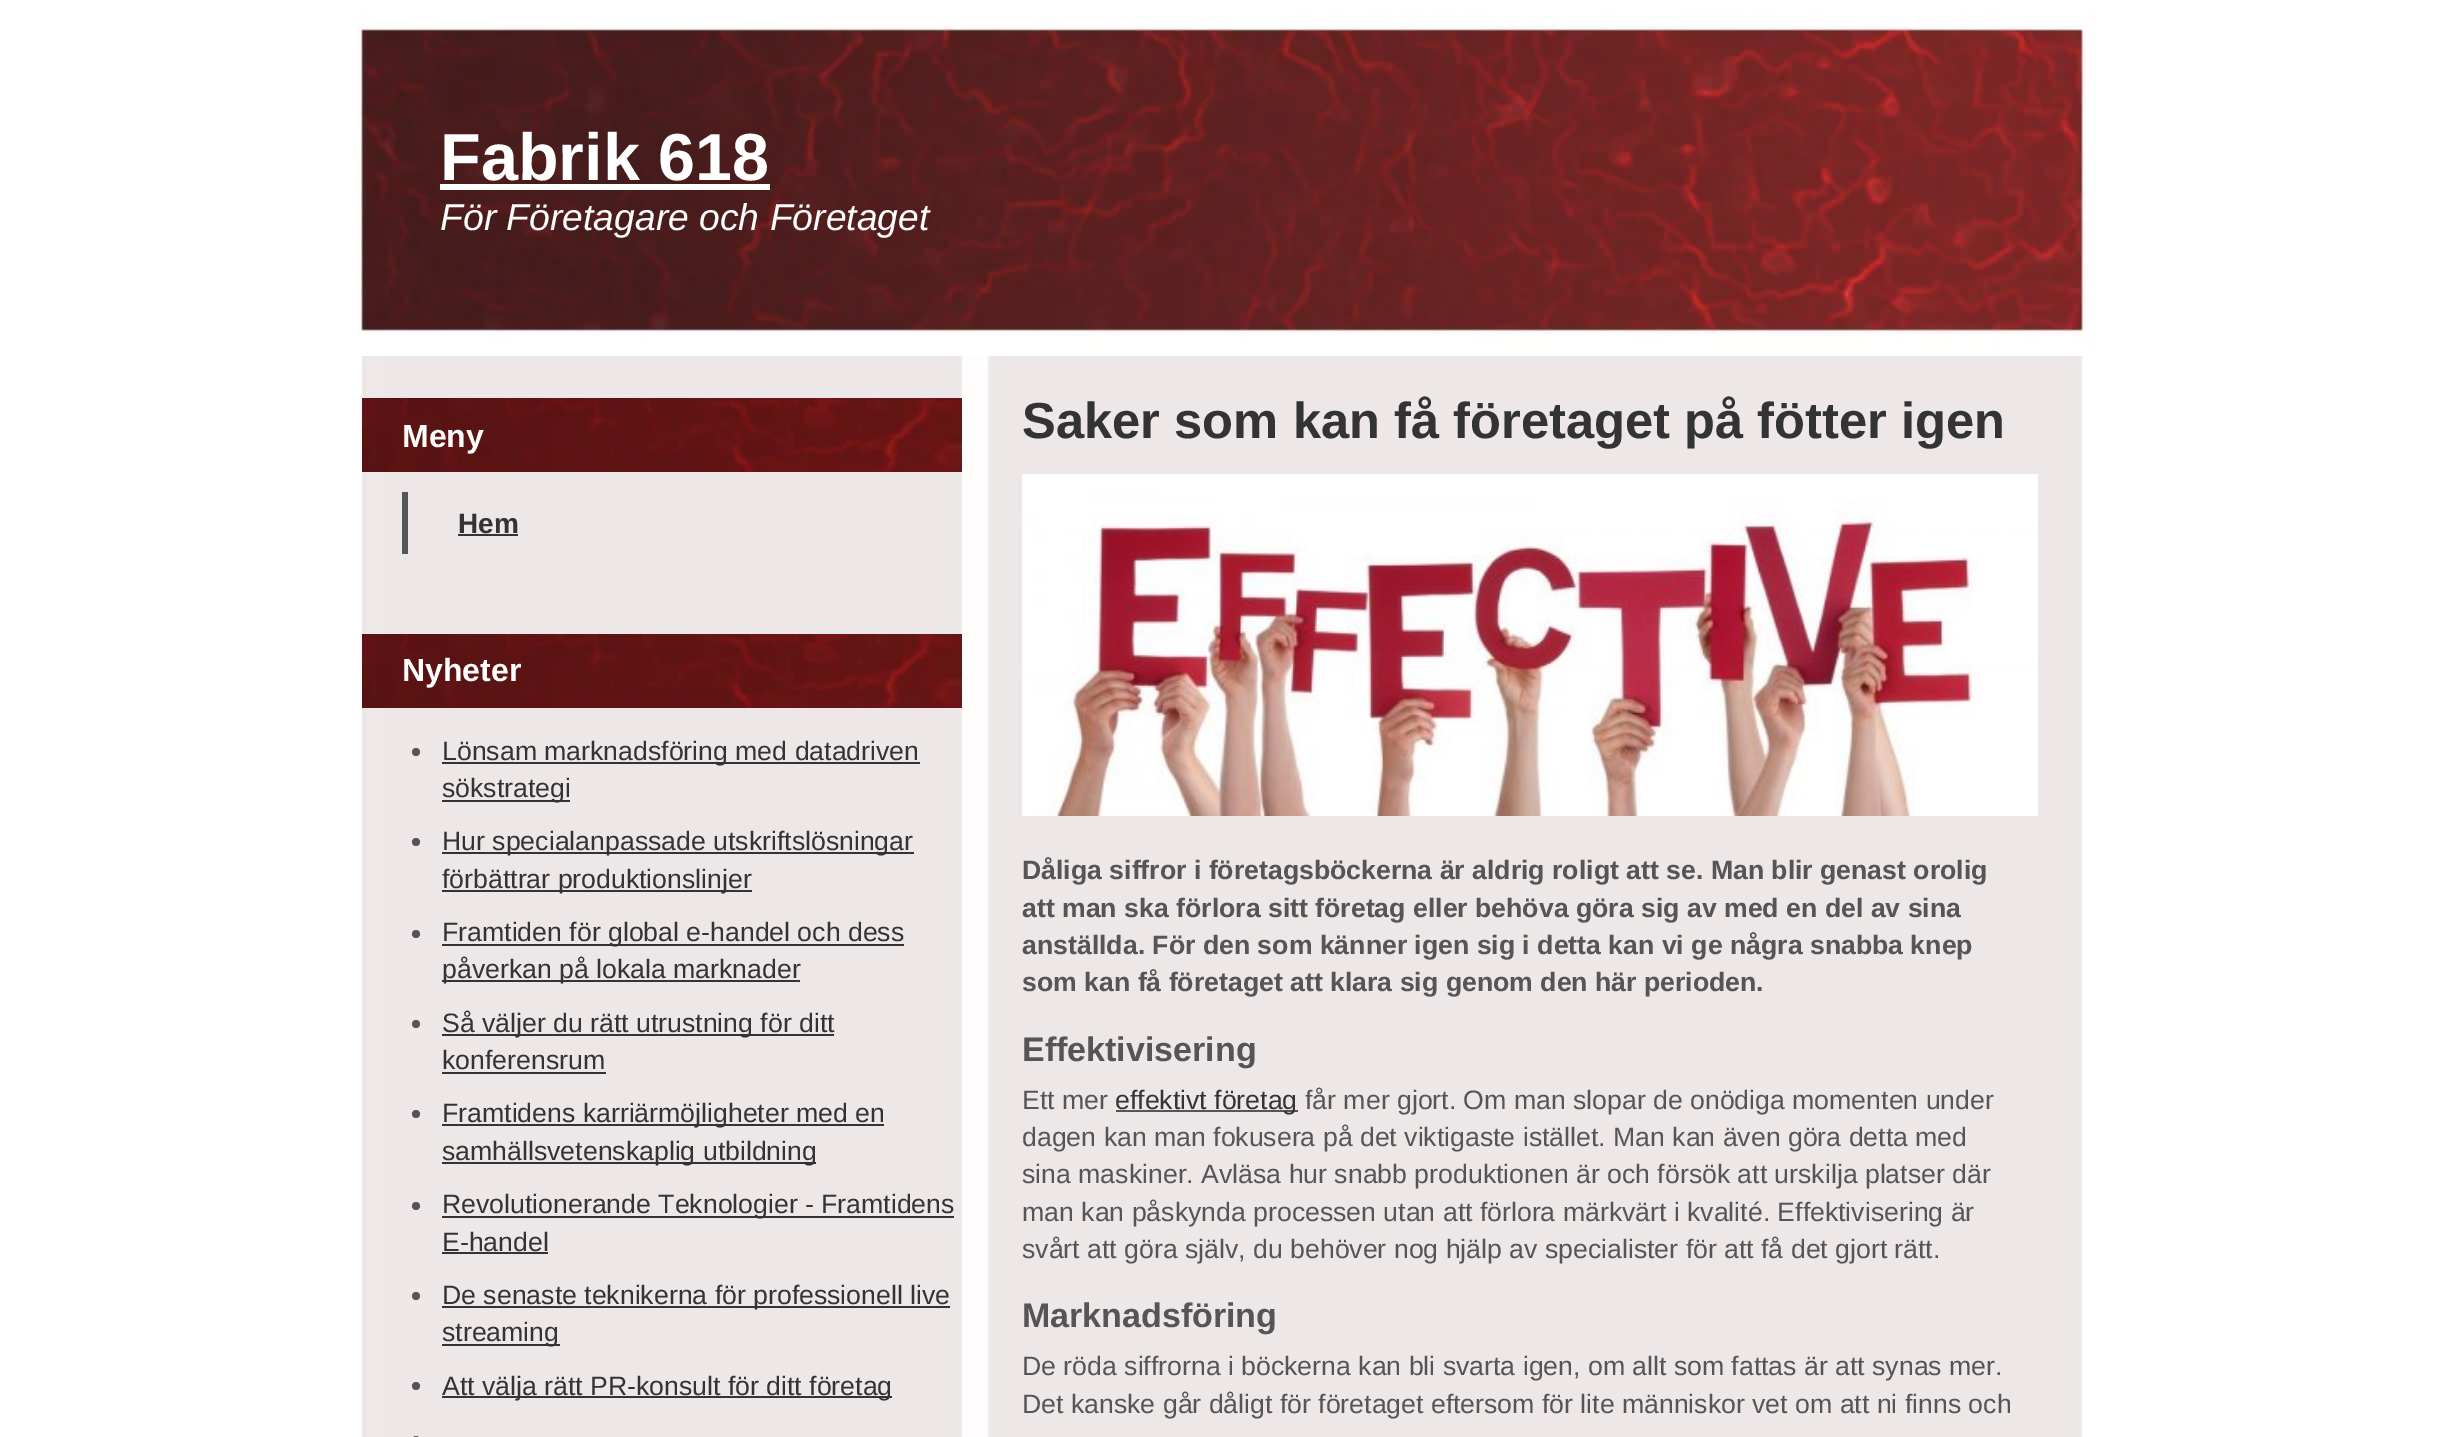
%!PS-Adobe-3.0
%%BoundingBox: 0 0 2440 1437
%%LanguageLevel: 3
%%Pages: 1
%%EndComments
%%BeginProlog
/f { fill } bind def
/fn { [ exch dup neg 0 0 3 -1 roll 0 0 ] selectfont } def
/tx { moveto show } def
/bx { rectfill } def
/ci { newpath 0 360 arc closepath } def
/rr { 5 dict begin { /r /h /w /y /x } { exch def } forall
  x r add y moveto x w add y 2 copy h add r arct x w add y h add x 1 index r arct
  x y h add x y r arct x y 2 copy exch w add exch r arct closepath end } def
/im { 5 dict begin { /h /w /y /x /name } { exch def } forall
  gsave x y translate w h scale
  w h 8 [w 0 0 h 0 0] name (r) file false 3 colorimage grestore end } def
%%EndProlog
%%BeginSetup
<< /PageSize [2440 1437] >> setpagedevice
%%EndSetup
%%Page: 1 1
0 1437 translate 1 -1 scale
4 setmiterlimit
1 setgray
0 0 2440 1437 bx
(image0.raw) 361 356 1722 1081 im
(image1.raw) 356 0 1740 356 im
/LiberationSans-Bold 66.5 fn
(Fabrik 618) 440 180 tx
440 184 330 6 bx
/LiberationSans-Italic 37.3 fn
(För Företagare och Företaget) 440 230 tx
(image2.raw) 362 398 600 74 im
/LiberationSans-Bold 32 fn
(Meny) 402 447 tx
0.333 setgray
402 492 6 62 bx
/LiberationSans-Bold 28 fn
0.2 setgray
(Hem) 458 533 tx
458 534 60 2 bx
(image2.raw) 362 634 600 74 im
/LiberationSans-Bold 32 fn
1 setgray
(Nyheter) 402 681 tx
0.333 setgray
416 752 4 ci f
0.2 setgray
442 762 478 2 bx
/LiberationSans-Regular 26.65 fn
(Lönsam marknadsföring med datadriven) 442 760 tx
442 800 128 2 bx
(sökstrategi) 442 797 tx
0.333 setgray
416 842 4 ci f
0.2 setgray
442 852 472 2 bx
(Hur specialanpassade utskriftslösningar) 442 850 tx
442 890 310 2 bx
(förbättrar produktionslinjer) 442 888 tx
0.333 setgray
416 934 4 ci f
0.2 setgray
442 944 462 2 bx
(Framtiden för global e-handel och dess) 442 941 tx
442 980 358 2 bx
(påverkan på lokala marknader) 442 978 tx
0.333 setgray
416 1024 4 ci f
0.2 setgray
442 1034 392 2 bx
(Så väljer du rätt utrustning för ditt) 442 1032 tx
(konferensrum) 442 1069 tx
442 1072 164 2 bx
0.333 setgray
416 1114 4 ci f
0.2 setgray
442 1124 442 2 bx
(Framtidens karriärmöjligheter med en) 442 1122 tx
442 1162 374 2 bx
(samhällsvetenskaplig utbildning) 442 1160 tx
0.333 setgray
416 1206 4 ci f
0.2 setgray
442 1216 512 2 bx
(Revolutionerande Teknologier - Framtidens) 442 1213 tx
(E-handel) 442 1251 tx
442 1252 106 2 bx
0.333 setgray
416 1296 4 ci f
0.2 setgray
442 1306 508 2 bx
(De senaste teknikerna för professionell live) 442 1304 tx
442 1344 118 2 bx
(streaming) 442 1341 tx
0.333 setgray
416 1386 4 ci f
0.2 setgray
442 1396 450 2 bx
(Att välja rätt PR-konsult för ditt företag) 442 1395 tx
0.333 setgray
412 1436 8 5 4 rr f
/LiberationSans-Bold 50.7 fn
0.2 setgray
(Saker som kan få företaget på fötter igen) 1022 438 tx
(image3.raw) 1022 474 1016 342 im
/LiberationSans-Bold 26.65 fn
0.333 setgray
(Dåliga siffror i företagsböckerna är aldrig roligt att se. Man blir genast orolig) 1022 879 tx
(att man ska förlora sitt företag eller behöva göra sig av med en del av sina) 1022 917 tx
(anställda. För den som känner igen sig i detta kan vi ge några snabba knep) 1022 954 tx
(som kan få företaget att klara sig genom den här perioden.) 1022 991 tx
/LiberationSans-Bold 34 fn
(Effektivisering) 1022 1061 tx
/LiberationSans-Regular 26.65 fn
(Ett mer) 1022 1109 tx
1116 1110 182 2 bx
0.2 setgray
(effektivt företag) 1115 1109 tx
0.333 setgray
(får mer gjort. Om man slopar de onödiga momenten under) 1305 1109 tx
(dagen kan man fokusera på det viktigaste istället. Man kan även göra detta med) 1022 1146 tx
(sina maskiner. Avläsa hur snabb produktionen är och försök att urskilja platser där) 1022 1183 tx
(man kan påskynda processen utan att förlora märkvärt i kvalité. Effektivisering är) 1022 1221 tx
(svårt att göra själv, du behöver nog hjälp av specialister för att få det gjort rätt.) 1022 1258 tx
/LiberationSans-Bold 34 fn
(Marknadsföring) 1022 1327 tx
/LiberationSans-Regular 26.65 fn
(De röda siffrorna i böckerna kan bli svarta igen, om allt som fattas är att synas mer.) 1022 1375 tx
(Det kanske går dåligt för företaget eftersom för lite människor vet om att ni finns och) 1022 1413 tx
showpage
%%EOF
